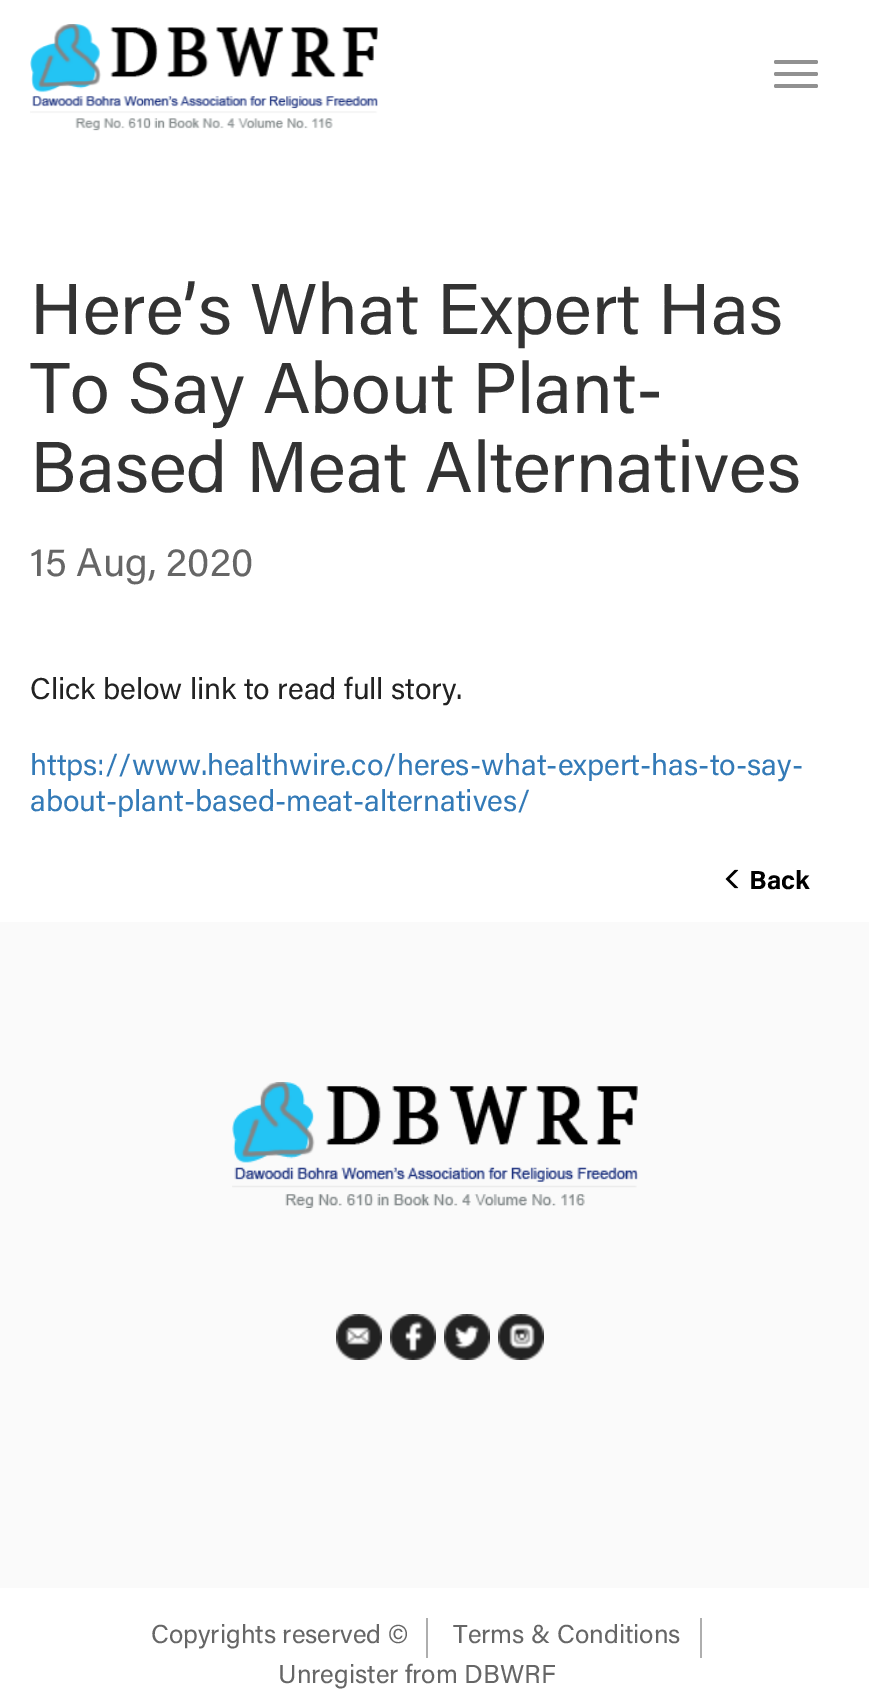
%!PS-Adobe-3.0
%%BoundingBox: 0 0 869 1698
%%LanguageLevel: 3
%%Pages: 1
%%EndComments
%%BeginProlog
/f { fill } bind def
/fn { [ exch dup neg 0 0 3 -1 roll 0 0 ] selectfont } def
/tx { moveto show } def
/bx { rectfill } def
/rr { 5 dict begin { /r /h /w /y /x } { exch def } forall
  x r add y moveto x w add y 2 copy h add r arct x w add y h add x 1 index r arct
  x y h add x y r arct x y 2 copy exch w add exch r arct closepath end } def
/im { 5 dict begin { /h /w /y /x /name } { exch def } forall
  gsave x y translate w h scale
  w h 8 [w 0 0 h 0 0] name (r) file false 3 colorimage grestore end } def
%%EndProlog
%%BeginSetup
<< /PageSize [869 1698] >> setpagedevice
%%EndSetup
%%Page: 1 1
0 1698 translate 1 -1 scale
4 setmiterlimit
1 setgray
0 0 869 1698 bx
(image0.raw) 30 24 348 107 im
0.569 setgray
774 60 44 4 2 rr f
774 72 44 4 2 rr f
774 84 44 4 2 rr f
/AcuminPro-Regular 72 fn
0.2 setgray
(Here’s What Expert Has) 30 334 tx
(To Say About Plant-) 30 413 tx
(Based Meat Alternatives) 30 492 tx
/AcuminPro-Regular 40 fn
0.4 setgray
(15 Aug, 2020) 30 576 tx
/AcuminPro-Regular 30 fn
0.133 setgray
(Click below link to read full story.) 30 699 tx
0.2 0.478 0.718 setrgbcolor
(https://www.healthwire.co/heres-what-expert-has-to-say-) 30 775 tx
(about-plant-based-meat-alternatives/) 30 811 tx
(image1.raw) 725 869 14 20 im
/AcuminPro-Bold 26 fn
0 setgray
(Back) 749 889 tx
0.98 setgray
0 922 869 666 bx
(image2.raw) 232 1082 406 126 im
(image3.raw) 336 1314 46 46 im
(image4.raw) 390 1314 46 46 im
(image5.raw) 444 1314 46 46 im
(image6.raw) 498 1314 46 46 im
0.682 setgray
426 1618 2 40 bx
/AcuminPro-Regular 26 fn
0.4 setgray
(Copyrights reserved ©) 151 1643 tx
0.682 setgray
700 1618 2 40 bx
0.4 setgray
(Terms & Conditions) 453 1643 tx
(Unregister from DBWRF) 278 1683 tx
showpage
%%EOF
